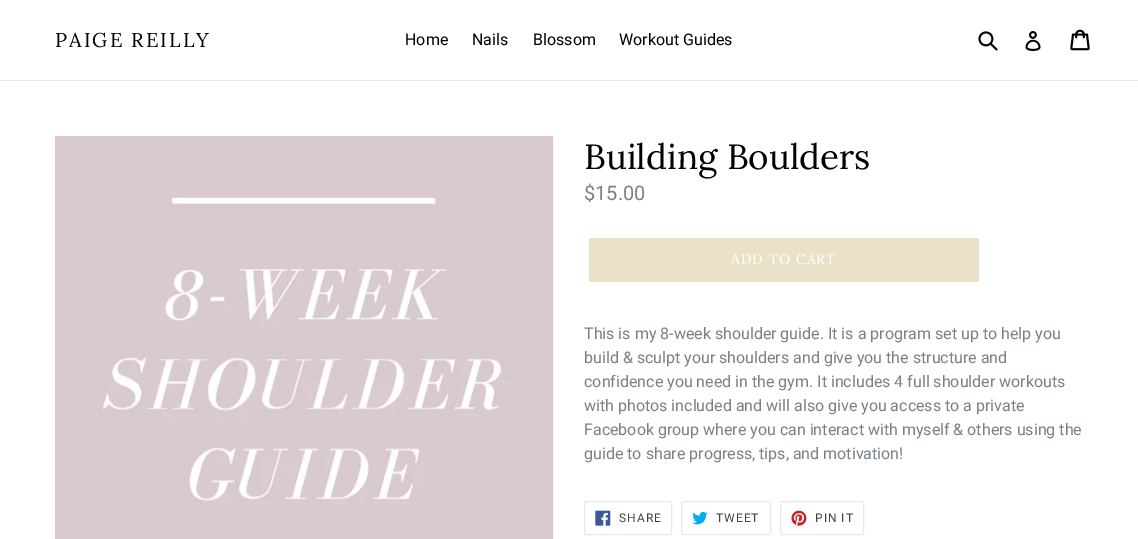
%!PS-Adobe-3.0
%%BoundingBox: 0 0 1138 539
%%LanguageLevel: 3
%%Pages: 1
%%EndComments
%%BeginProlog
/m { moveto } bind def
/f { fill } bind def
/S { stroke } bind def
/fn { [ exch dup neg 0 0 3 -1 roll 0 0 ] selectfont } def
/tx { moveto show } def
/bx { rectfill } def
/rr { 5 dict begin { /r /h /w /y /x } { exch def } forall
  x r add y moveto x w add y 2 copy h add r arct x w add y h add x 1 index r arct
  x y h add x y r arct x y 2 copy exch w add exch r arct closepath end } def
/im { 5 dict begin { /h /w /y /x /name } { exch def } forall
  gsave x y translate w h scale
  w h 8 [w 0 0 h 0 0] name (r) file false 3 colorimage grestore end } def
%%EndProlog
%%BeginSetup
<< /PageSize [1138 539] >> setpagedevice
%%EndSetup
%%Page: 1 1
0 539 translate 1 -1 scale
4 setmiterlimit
1 setgray
0 0 1138 539 bx
0.91 0.914 0.922 setrgbcolor
0 80 1138 1 bx
/Lora-Regular 20 fn
0 setgray
55 47 m 2 0 (PAIGE REILLY) ashow
/Roboto-Regular 16 fn
(Home) 405 45 tx
(Nails) 472 45 tx
(Blossom) 533 45 tx
(Workout Guides) 619 45 tx
(image0.raw) 978 31 20 20 im
(image1.raw) 1025 31 16 20 im
(image2.raw) 1070 29 20 22 im
(image3.raw) 55 136 499 403 im
/Lora-Regular 35 fn
(Building Boulders) 584 169 tx
/Roboto-Regular 20 fn
0.471 0.506 0.533 setrgbcolor
($15.00) 584 200 tx
0.914 0.886 0.784 setrgbcolor
589 238 390 44 2 rr f
/Lora-Regular 14 fn
1 setgray
731 264 m 1.1 0 (ADD TO CART) ashow
/Roboto-Regular 16 fn
0.471 0.506 0.533 setrgbcolor
(This is my 8-week shoulder guide. It is a program set up to help you) 584 339 tx
(build & sculpt your shoulders and give you the structure and) 584 363 tx
(confidence you need in the gym. It includes 4 full shoulder workouts) 584 387 tx
(with photos included and will also give you access to a private) 584 411 tx
(Facebook group where you can interact with myself & others using the) 584 435 tx
(guide to share progress, tips, and motivation!) 584 459 tx
0.91 0.914 0.922 setrgbcolor
584.5 501.5 87 33 1.5 rr S
(image4.raw) 595 510 16 16 im
/Roboto-Regular 12 fn
0.239 0.259 0.275 setrgbcolor
619 522 m 1 0 (SHARE) ashow
0.91 0.914 0.922 setrgbcolor
681.5 501.5 89 33 1.5 rr S
(image5.raw) 692 511 16 14 im
0.239 0.259 0.275 setrgbcolor
716 522 m 1 0 (TWEET) ashow
0.91 0.914 0.922 setrgbcolor
780.5 501.5 83 33 1.5 rr S
(image6.raw) 791 510 16 16 im
0.239 0.259 0.275 setrgbcolor
815 522 m 1 0 (PIN IT) ashow
showpage
%%EOF
